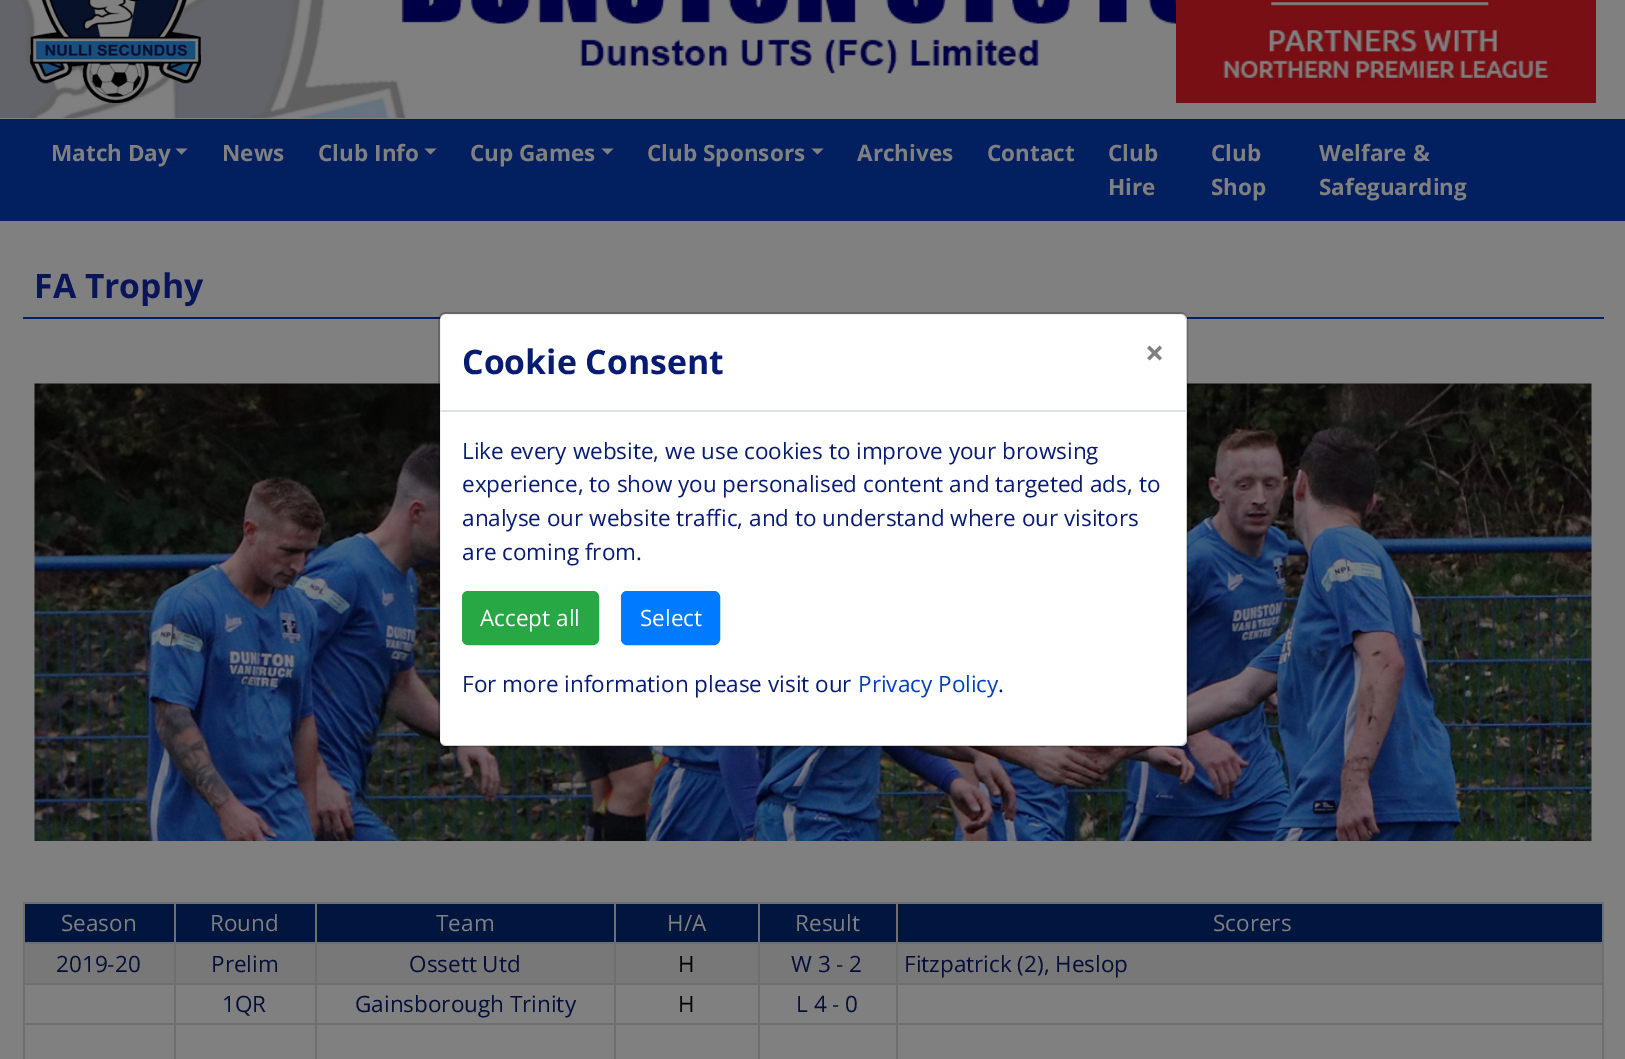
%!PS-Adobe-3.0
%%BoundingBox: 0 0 1625 1059
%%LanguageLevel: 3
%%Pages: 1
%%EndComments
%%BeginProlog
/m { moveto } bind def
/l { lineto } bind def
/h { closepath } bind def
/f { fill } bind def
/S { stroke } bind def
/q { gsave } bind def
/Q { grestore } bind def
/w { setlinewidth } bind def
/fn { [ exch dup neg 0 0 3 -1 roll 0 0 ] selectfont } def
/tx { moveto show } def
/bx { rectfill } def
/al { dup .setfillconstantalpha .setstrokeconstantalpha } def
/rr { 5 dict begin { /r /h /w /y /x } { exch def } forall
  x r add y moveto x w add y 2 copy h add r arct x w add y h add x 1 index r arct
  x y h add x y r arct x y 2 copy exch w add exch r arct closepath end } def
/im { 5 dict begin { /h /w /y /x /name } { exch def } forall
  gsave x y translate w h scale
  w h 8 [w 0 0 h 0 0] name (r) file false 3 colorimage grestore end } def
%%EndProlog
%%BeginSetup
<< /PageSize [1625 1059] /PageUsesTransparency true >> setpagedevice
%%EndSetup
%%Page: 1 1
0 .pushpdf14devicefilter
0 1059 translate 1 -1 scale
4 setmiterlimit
0.502 setgray
0 0 1625 1059 bx
(image0.raw) 0 0 1210 118 im
(image1.raw) 30 0 171 103 im
(image2.raw) 1176 0 420 103 im
0.008 0.125 0.373 setrgbcolor
0 119 1625 102 bx
/OpenSans-Bold 22.5 fn
0.502 setgray
(Match Day) 51 161 tx
175.5 148.5 m 187.5 148.5 l 181.5 154.5 l h f
(News) 222 161 tx
(Club Info) 318 161 tx
424.5 148.5 m 436.5 148.5 l 430.5 154.5 l h f
(Cup Games) 470 161 tx
601.5 148.5 m 613.5 148.5 l 607.5 154.5 l h f
(Club Sponsors) 647 161 tx
811.5 148.5 m 823.5 148.5 l 817.5 154.5 l h f
(Archives) 857 161 tx
(Contact) 987 161 tx
(Club) 1108 161 tx
(Hire) 1108 195 tx
(Club) 1211 161 tx
(Shop) 1211 195 tx
(Welfare &) 1319 161 tx
(Safeguarding) 1319 195 tx
0.008 0.125 0.373 setrgbcolor
23 317 1581 2 bx
/OpenSans-Bold 33.75 fn
0.039 0.078 0.349 setrgbcolor
(FA Trophy) 34 298 tx
(image3.raw) 34 383 1558 458 im
0 0.086 0.247 setrgbcolor
25 904 149 38 bx
0.435 setgray
896 902 708 2 bx
896 942 708 2 bx
896 983 708 2 bx
896 1023 708 2 bx
896 1023 2 36 bx
758 1023 139 2 bx
896 983 2 42 bx
758 983 139 2 bx
896 942 2 42 bx
758 942 139 2 bx
896 902 2 42 bx
758 902 139 2 bx
758 1023 2 36 bx
614 1023 145 2 bx
758 983 2 42 bx
614 983 145 2 bx
758 942 2 42 bx
614 942 145 2 bx
758 902 2 42 bx
614 902 145 2 bx
614 1023 2 36 bx
315 1023 300 2 bx
614 983 2 42 bx
315 983 300 2 bx
614 942 2 42 bx
315 942 300 2 bx
614 902 2 42 bx
315 902 300 2 bx
315 1023 2 36 bx
174 1023 143 2 bx
315 983 2 42 bx
174 983 143 2 bx
315 942 2 42 bx
174 942 143 2 bx
315 902 2 42 bx
174 902 143 2 bx
174 1023 2 36 bx
23 1023 153 2 bx
174 983 2 42 bx
23 983 153 2 bx
174 942 2 42 bx
23 942 153 2 bx
174 902 2 42 bx
23 902 153 2 bx
23 1023 2 36 bx
23 983 2 42 bx
23 942 2 42 bx
23 902 2 42 bx
/OpenSans-Regular 22.5 fn
0.502 setgray
(Season) 61 931 tx
0 0.086 0.247 setrgbcolor
176 904 139 38 bx
0.502 setgray
(Round) 210 931 tx
0 0.086 0.247 setrgbcolor
317 904 297 38 bx
0.502 setgray
(Team) 436 931 tx
0 0.086 0.247 setrgbcolor
616 904 142 38 bx
0.502 setgray
(H/A) 667 931 tx
0 0.086 0.247 setrgbcolor
760 904 136 38 bx
0.502 setgray
(Result) 795 931 tx
0 0.086 0.247 setrgbcolor
898 904 704 38 bx
0.435 setgray
1602 1023 2 36 bx
1602 983 2 42 bx
1602 942 2 42 bx
1602 902 2 42 bx
0.502 setgray
(Scorers) 1213 931 tx
0.471 setgray
25 944 149 39 bx
0.012 0.055 0.224 setrgbcolor
(2019-20) 56 972 tx
0.471 setgray
176 944 139 39 bx
0.012 0.055 0.224 setrgbcolor
(Prelim) 211 972 tx
0.471 setgray
317 944 297 39 bx
0.012 0.055 0.224 setrgbcolor
(Ossett Utd) 409 972 tx
0.471 setgray
616 944 142 39 bx
0 setgray
(H) 678 972 tx
0.471 setgray
760 944 136 39 bx
0.012 0.055 0.224 setrgbcolor
(W 3 - 2) 791 972 tx
0.471 setgray
898 944 704 39 bx
0.012 0.055 0.224 setrgbcolor
(Fitzpatrick \(2\), Heslop) 904 972 tx
(1QR) 222 1012 tx
(Gainsborough Trinity) 355 1012 tx
0 setgray
(H) 678 1012 tx
0.012 0.055 0.224 setrgbcolor
(L 4 - 0) 796 1012 tx
1 setgray
440 314 747 432 6 rr f
0.2 al
0 setgray
2 w
439 313 748 433 7 rr S
1 al
0.871 0.886 0.902 setrgbcolor
440 410 747 2 bx
/OpenSans-Bold 33.75 fn
0.024 0.106 0.443 setrgbcolor
(Cookie Consent) 462 374 tx
0.502 setgray
(×) 1145 365 tx
/OpenSans-Regular 22.5 fn
0.024 0.106 0.443 setrgbcolor
(Like every website, we use cookies to improve your browsing) 462 459 tx
(experience, to show you personalised content and targeted ads, to) 462 492 tx
(analyse our website traffic, and to understand where our visitors) 462 526 tx
(are coming from.) 462 560 tx
0.157 0.655 0.271 setrgbcolor
463 592 135 52 5 rr q f Q
S
1 setgray
(Accept all) 480 626 tx
0 0.482 1 setrgbcolor
622 592 97 52 5 rr q f Q
S
1 setgray
(Select) 640 626 tx
0.024 0.106 0.443 setrgbcolor
(For more information please visit our) 462 692 tx
0.012 0.247 0.741 setrgbcolor
(Privacy Policy) 858 692 tx
0.024 0.106 0.443 setrgbcolor
(.) 998 692 tx
.poppdf14devicefilter showpage
%%EOF
